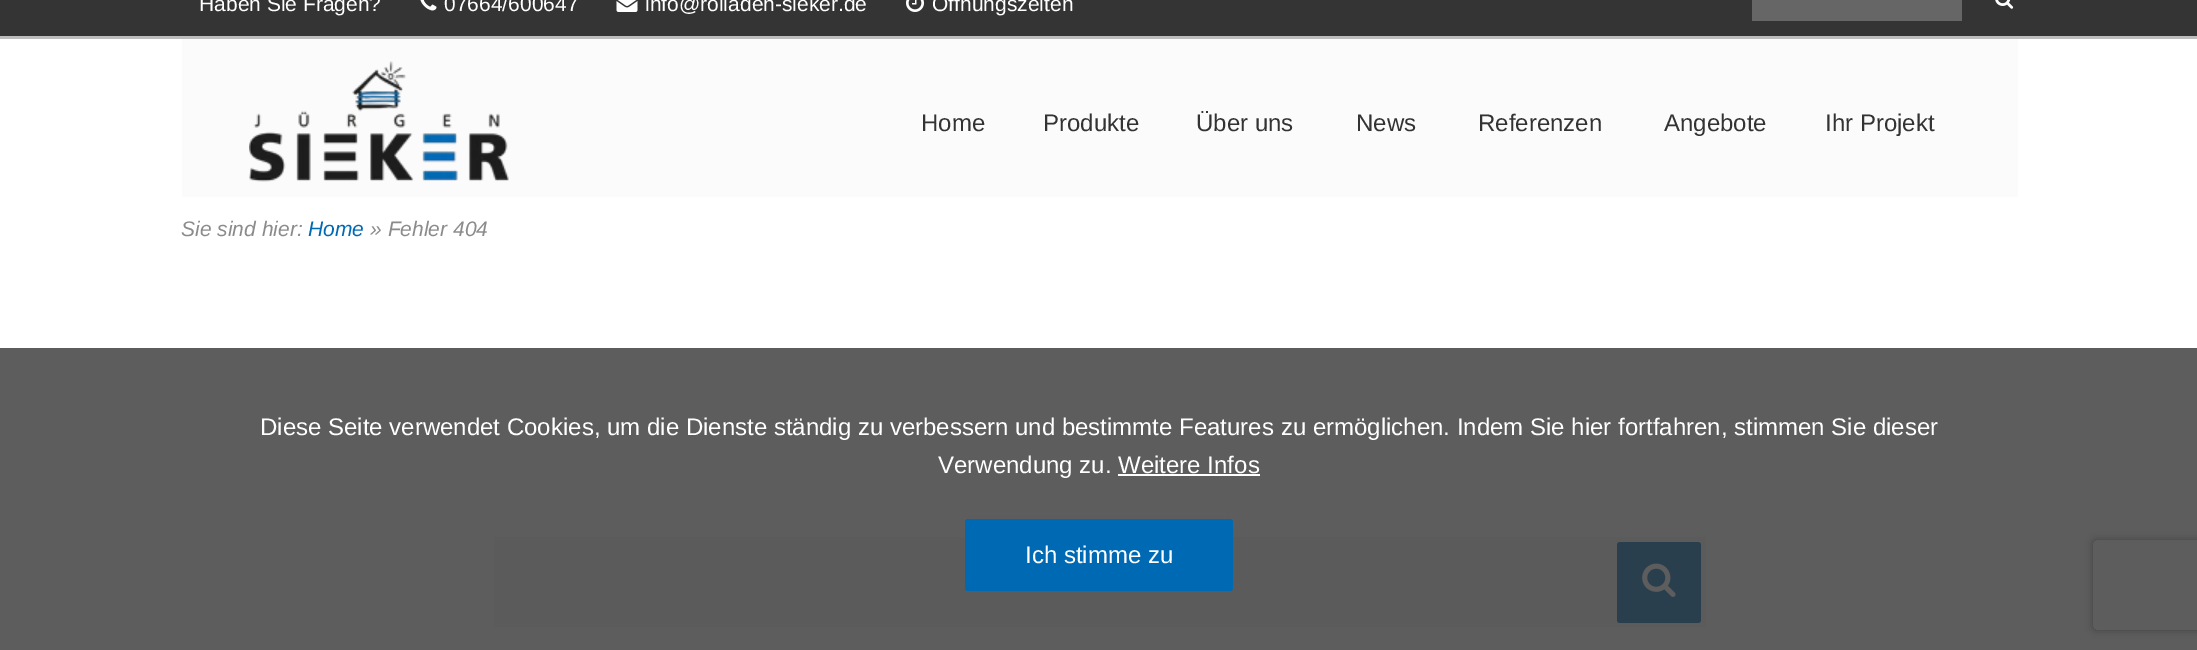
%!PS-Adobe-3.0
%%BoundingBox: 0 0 2197 650
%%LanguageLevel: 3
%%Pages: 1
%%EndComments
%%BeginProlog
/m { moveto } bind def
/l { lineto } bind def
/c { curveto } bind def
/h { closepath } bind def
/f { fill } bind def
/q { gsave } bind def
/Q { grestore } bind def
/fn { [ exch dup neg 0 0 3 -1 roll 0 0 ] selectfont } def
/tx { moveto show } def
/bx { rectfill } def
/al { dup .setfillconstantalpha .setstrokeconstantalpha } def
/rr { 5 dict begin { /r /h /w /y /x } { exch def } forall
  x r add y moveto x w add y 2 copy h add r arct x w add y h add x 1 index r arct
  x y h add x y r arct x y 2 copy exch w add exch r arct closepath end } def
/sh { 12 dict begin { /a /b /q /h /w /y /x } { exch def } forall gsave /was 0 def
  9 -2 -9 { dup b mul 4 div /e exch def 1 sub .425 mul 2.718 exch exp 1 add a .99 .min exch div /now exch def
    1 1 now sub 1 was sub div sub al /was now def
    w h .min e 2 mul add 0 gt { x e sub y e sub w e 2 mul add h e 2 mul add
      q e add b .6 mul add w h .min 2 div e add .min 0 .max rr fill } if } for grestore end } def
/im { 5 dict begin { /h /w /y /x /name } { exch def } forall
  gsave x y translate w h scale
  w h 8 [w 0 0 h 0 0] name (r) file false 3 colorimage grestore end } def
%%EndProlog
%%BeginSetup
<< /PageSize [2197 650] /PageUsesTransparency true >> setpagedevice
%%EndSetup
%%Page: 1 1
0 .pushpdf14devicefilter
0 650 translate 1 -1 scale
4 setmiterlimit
1 setgray
0 0 2197 650 bx
0.204 setgray
0 0 2197 36 bx
0.741 0.737 0.741 setrgbcolor
0 36 2197 3 bx
/LiberationSans-Regular 21 fn
1 setgray
(Haben Sie Fragen?) 199 11 tx
(image0.raw) 420 0 17 11 im
(07664/600647) 444 11 tx
(image1.raw) 616 0 22 12 im
(info@rolladen-sieker.de) 645 11 tx
(image2.raw) 906 0 18 12 im
(Öffnungszeiten) 932 11 tx
0.4 setgray
1752 0 210 21 bx
(image3.raw) 1995 0 19 9 im
0.984 setgray
182 39 1836 158 bx
(image4.raw) 249 61 260 121 im
/LiberationSans-Regular 24 fn
0.2 setgray
(Home) 921 131 tx
(Produkte) 1043 131 tx
(Über uns) 1196 131 tx
(News) 1356 131 tx
(Referenzen) 1478 131 tx
(Angebote) 1664 131 tx
(Ihr Projekt) 1825 131 tx
/LiberationSans-Italic 21 fn
0.545 setgray
(Sie sind hier:) 181 236 tx
0 0.412 0.706 setrgbcolor
(Home) 308 236 tx
0.545 setgray
(» Fehler 404) 370 236 tx
0.961 setgray
494 537 1212 90 bx
0 0.412 0.706 setrgbcolor
1617 542 84 81 3 rr f
(image5.raw) 1642 563 34 34 im
q
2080 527 m 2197 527 l 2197 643 l 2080 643 l h 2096 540 m 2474 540 l 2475.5 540 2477 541.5 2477 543 c 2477 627 l 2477 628.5 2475.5 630 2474 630 c 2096 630 l 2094.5 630 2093 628.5 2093 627 c 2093 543 l 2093 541.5 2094.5 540 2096 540 c h eoclip newpath
0.502 setgray
2093 540 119 90 3 4 1 sh
Q
0.8 al
0.204 setgray
0 348 2197 302 bx
/LiberationSans-Regular 24 fn
1 al
1 setgray
(Diese Seite verwendet Cookies, um die Dienste ständig zu verbessern und bestimmte Features zu ermöglichen. Indem Sie hier fortfahren, stimmen Sie dieser) 260 435 tx
(Verwendung zu. Weitere Infos) 938 473 tx
1118 474 142 2 bx
0 0.412 0.706 setrgbcolor
965 519 268 72 3 rr f
1 setgray
(Ich stimme zu) 1025 563 tx
.poppdf14devicefilter showpage
%%EOF
